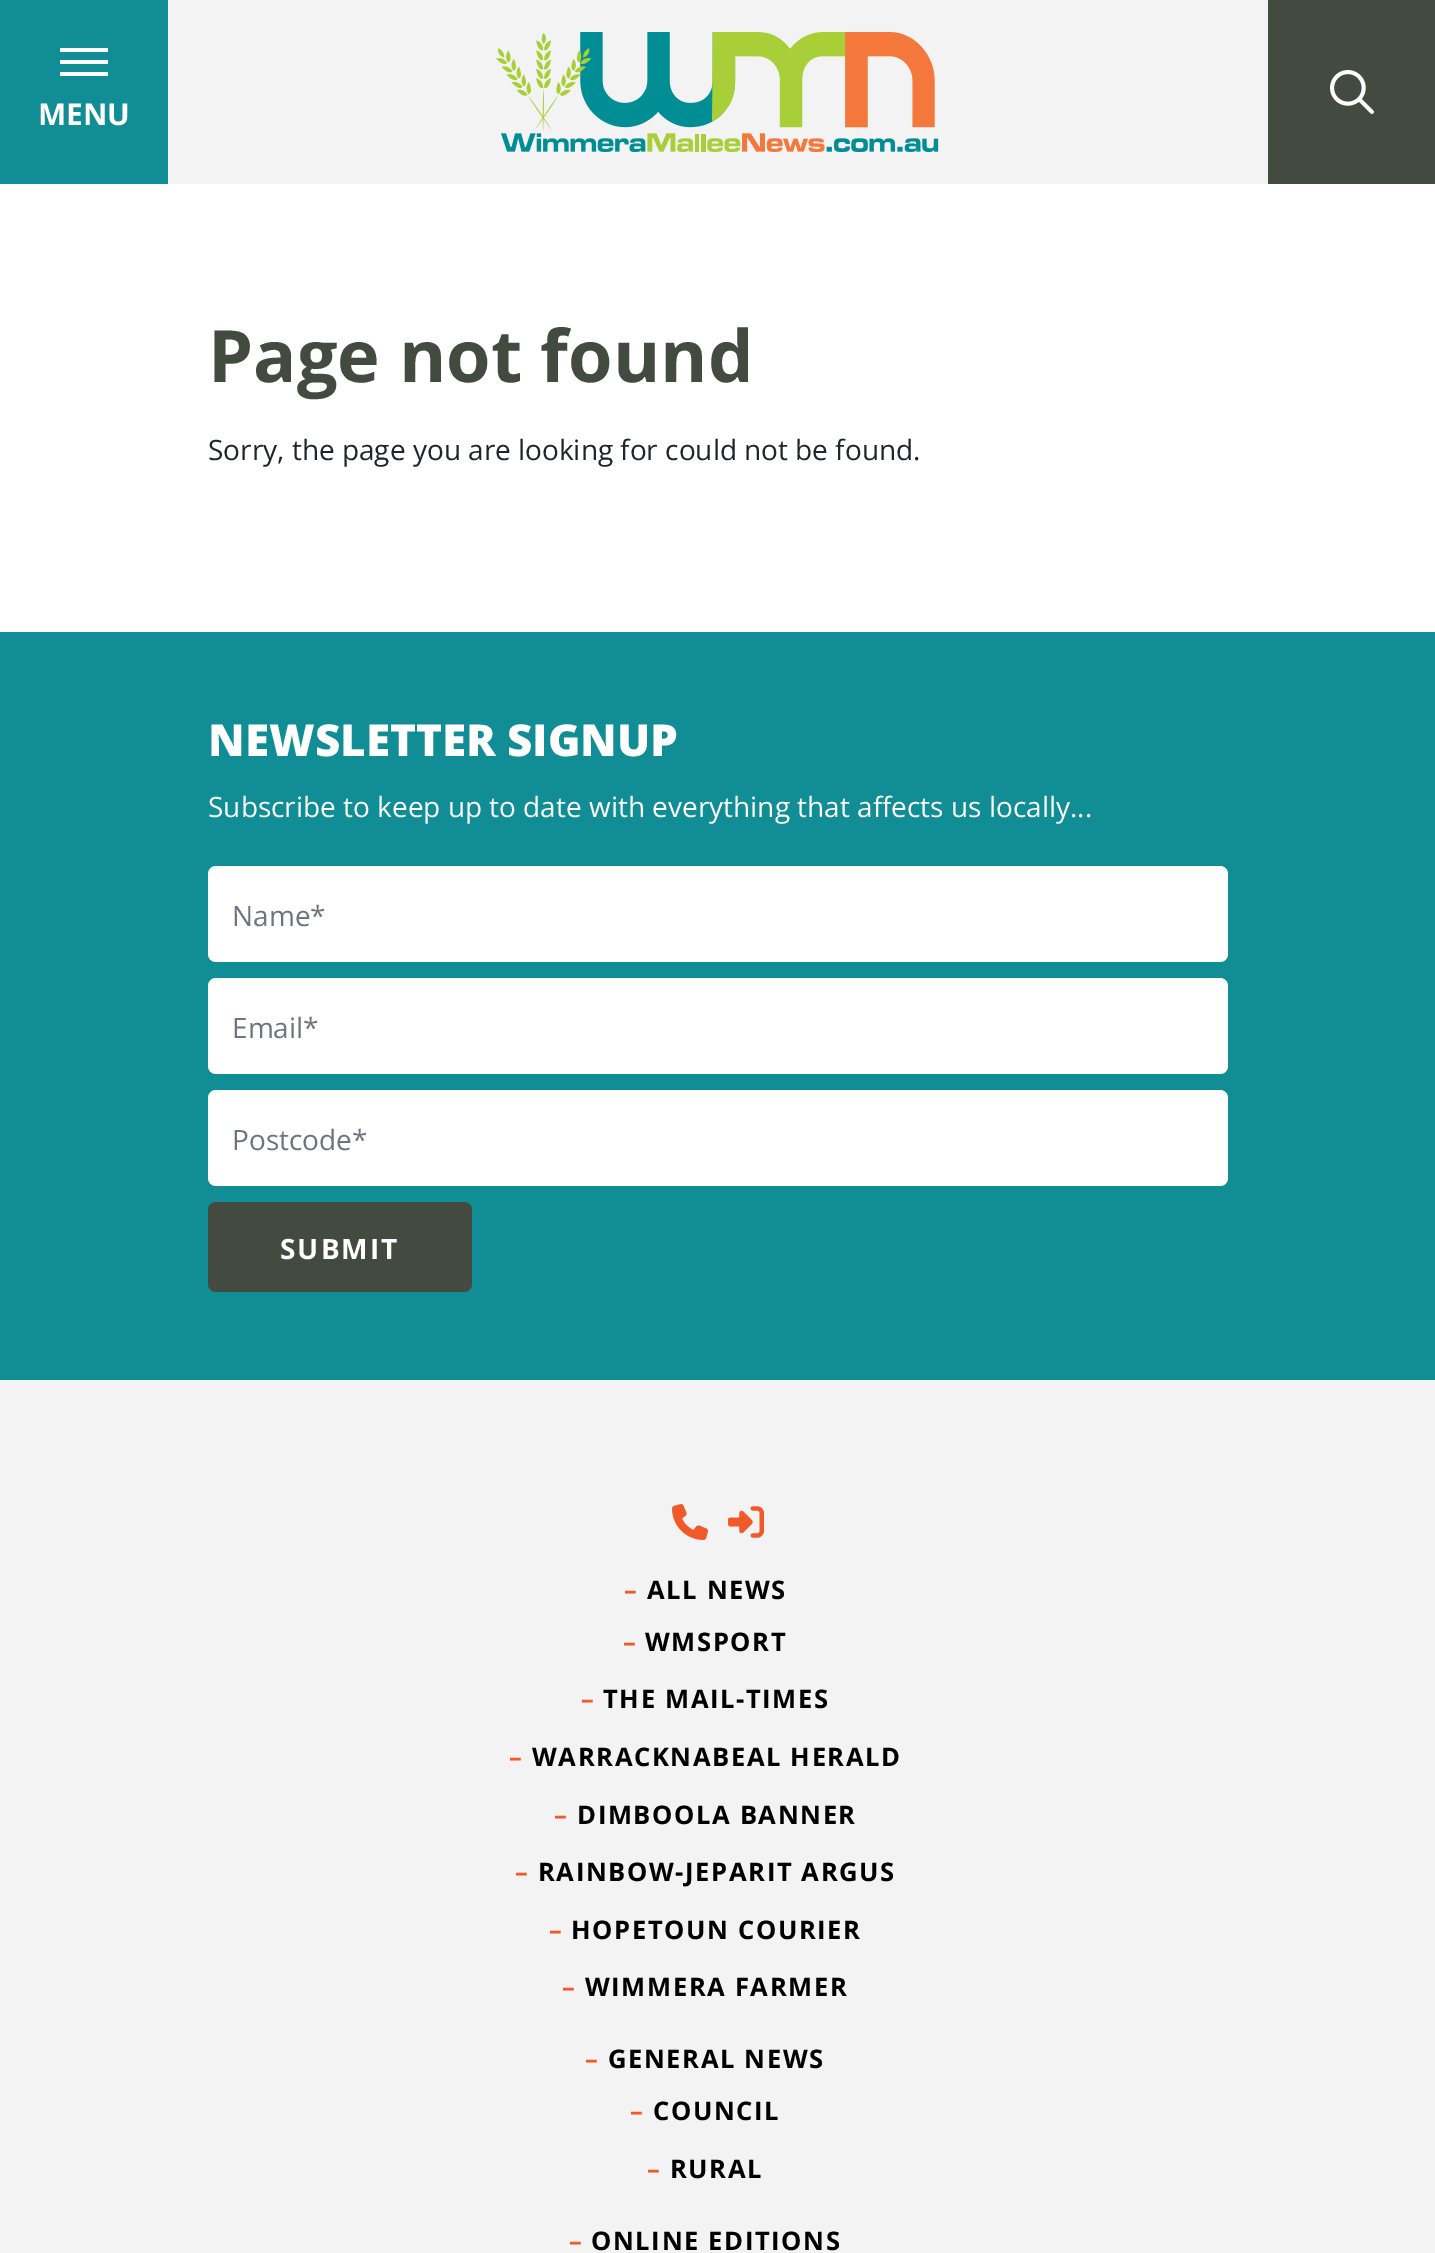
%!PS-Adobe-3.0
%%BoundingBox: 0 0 1435 2253
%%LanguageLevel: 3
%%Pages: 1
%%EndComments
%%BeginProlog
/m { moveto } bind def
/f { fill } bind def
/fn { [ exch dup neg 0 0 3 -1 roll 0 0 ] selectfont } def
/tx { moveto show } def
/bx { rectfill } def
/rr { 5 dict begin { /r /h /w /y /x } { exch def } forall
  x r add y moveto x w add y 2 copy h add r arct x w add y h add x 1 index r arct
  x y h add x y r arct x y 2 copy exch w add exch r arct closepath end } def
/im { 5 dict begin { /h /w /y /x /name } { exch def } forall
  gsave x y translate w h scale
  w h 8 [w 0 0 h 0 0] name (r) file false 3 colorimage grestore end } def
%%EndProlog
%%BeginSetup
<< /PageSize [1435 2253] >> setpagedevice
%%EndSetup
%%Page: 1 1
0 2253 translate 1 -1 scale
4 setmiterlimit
0.953 setgray
0 0 1435 2253 bx
0.067 0.553 0.584 setrgbcolor
0 0 168 184 bx
1 setgray
60 48 48 4 bx
60 60 48 4 bx
60 72 48 4 bx
/OpenSans-Bold 30 fn
(MENU) 38 125 tx
(image0.raw) 496 32 443 120 im
0.263 0.294 0.255 setrgbcolor
1268 0 167 184 bx
(image1.raw) 1330 70 44 44 im
1 setgray
0 184 1435 448 bx
/OpenSans-Bold 72 fn
0.263 0.294 0.255 setrgbcolor
(Page not found) 208 382 tx
/OpenSans-Regular 28 fn
0.129 0.145 0.161 setrgbcolor
(Sorry, the page you are looking for could not be found.) 208 460 tx
0.067 0.553 0.584 setrgbcolor
0 632 1435 748 bx
/OpenSans-ExtraBold 44 fn
1 setgray
(NEWSLETTER SIGNUP) 208 756 tx
/OpenSans-Regular 28 fn
(Subscribe to keep up to date with everything that affects us locally...) 208 817 tx
208 866 1020 96 8 rr f
0.424 0.459 0.49 setrgbcolor
(Name*) 232 926 tx
1 setgray
208 978 1020 96 8 rr f
0.424 0.459 0.49 setrgbcolor
(Email*) 232 1038 tx
1 setgray
208 1090 1020 96 8 rr f
0.424 0.459 0.49 setrgbcolor
(Postcode*) 232 1150 tx
0.263 0.294 0.255 setrgbcolor
208 1202 264 90 8 rr f
/OpenSans-Bold 28 fn
1 setgray
280 1259 m 2 0 (SUBMIT) ashow
(image2.raw) 672 1504 36 36 im
(image3.raw) 728 1506 36 32 im
/OpenSans-Bold 25.6 fn
0.945 0.349 0.161 setrgbcolor
624 1599 m 1.6 0 (–) ashow
0 setgray
647 1599 m 1.6 0 (ALL NEWS) ashow
0.945 0.349 0.161 setrgbcolor
623 1651 m 1.6 0 (–) ashow
0 setgray
645 1651 m 1.6 0 (WMSPORT) ashow
0.945 0.349 0.161 setrgbcolor
581 1708 m 1.6 0 (–) ashow
0 setgray
603 1708 m 1.6 0 (THE MAIL-TIMES) ashow
0.945 0.349 0.161 setrgbcolor
509 1766 m 1.6 0 (–) ashow
0 setgray
532 1766 m 1.6 0 (WARRACKNABEAL HERALD) ashow
0.945 0.349 0.161 setrgbcolor
554 1824 m 1.6 0 (–) ashow
0 setgray
577 1824 m 1.6 0 (DIMBOOLA BANNER) ashow
0.945 0.349 0.161 setrgbcolor
515 1881 m 1.6 0 (–) ashow
0 setgray
538 1881 m 1.6 0 (RAINBOW-JEPARIT ARGUS) ashow
0.945 0.349 0.161 setrgbcolor
549 1939 m 1.6 0 (–) ashow
0 setgray
571 1939 m 1.6 0 (HOPETOUN COURIER) ashow
0.945 0.349 0.161 setrgbcolor
562 1996 m 1.6 0 (–) ashow
0 setgray
585 1996 m 1.6 0 (WIMMERA FARMER) ashow
0.945 0.349 0.161 setrgbcolor
585 2068 m 1.6 0 (–) ashow
0 setgray
608 2068 m 1.6 0 (GENERAL NEWS) ashow
0.945 0.349 0.161 setrgbcolor
630 2120 m 1.6 0 (–) ashow
0 setgray
653 2120 m 1.6 0 (COUNCIL) ashow
0.945 0.349 0.161 setrgbcolor
647 2178 m 1.6 0 (–) ashow
0 setgray
670 2178 m 1.6 0 (RURAL) ashow
0.945 0.349 0.161 setrgbcolor
569 2250 m 1.6 0 (–) ashow
0 setgray
591 2250 m 1.6 0 (ONLINE EDITIONS) ashow
showpage
%%EOF
